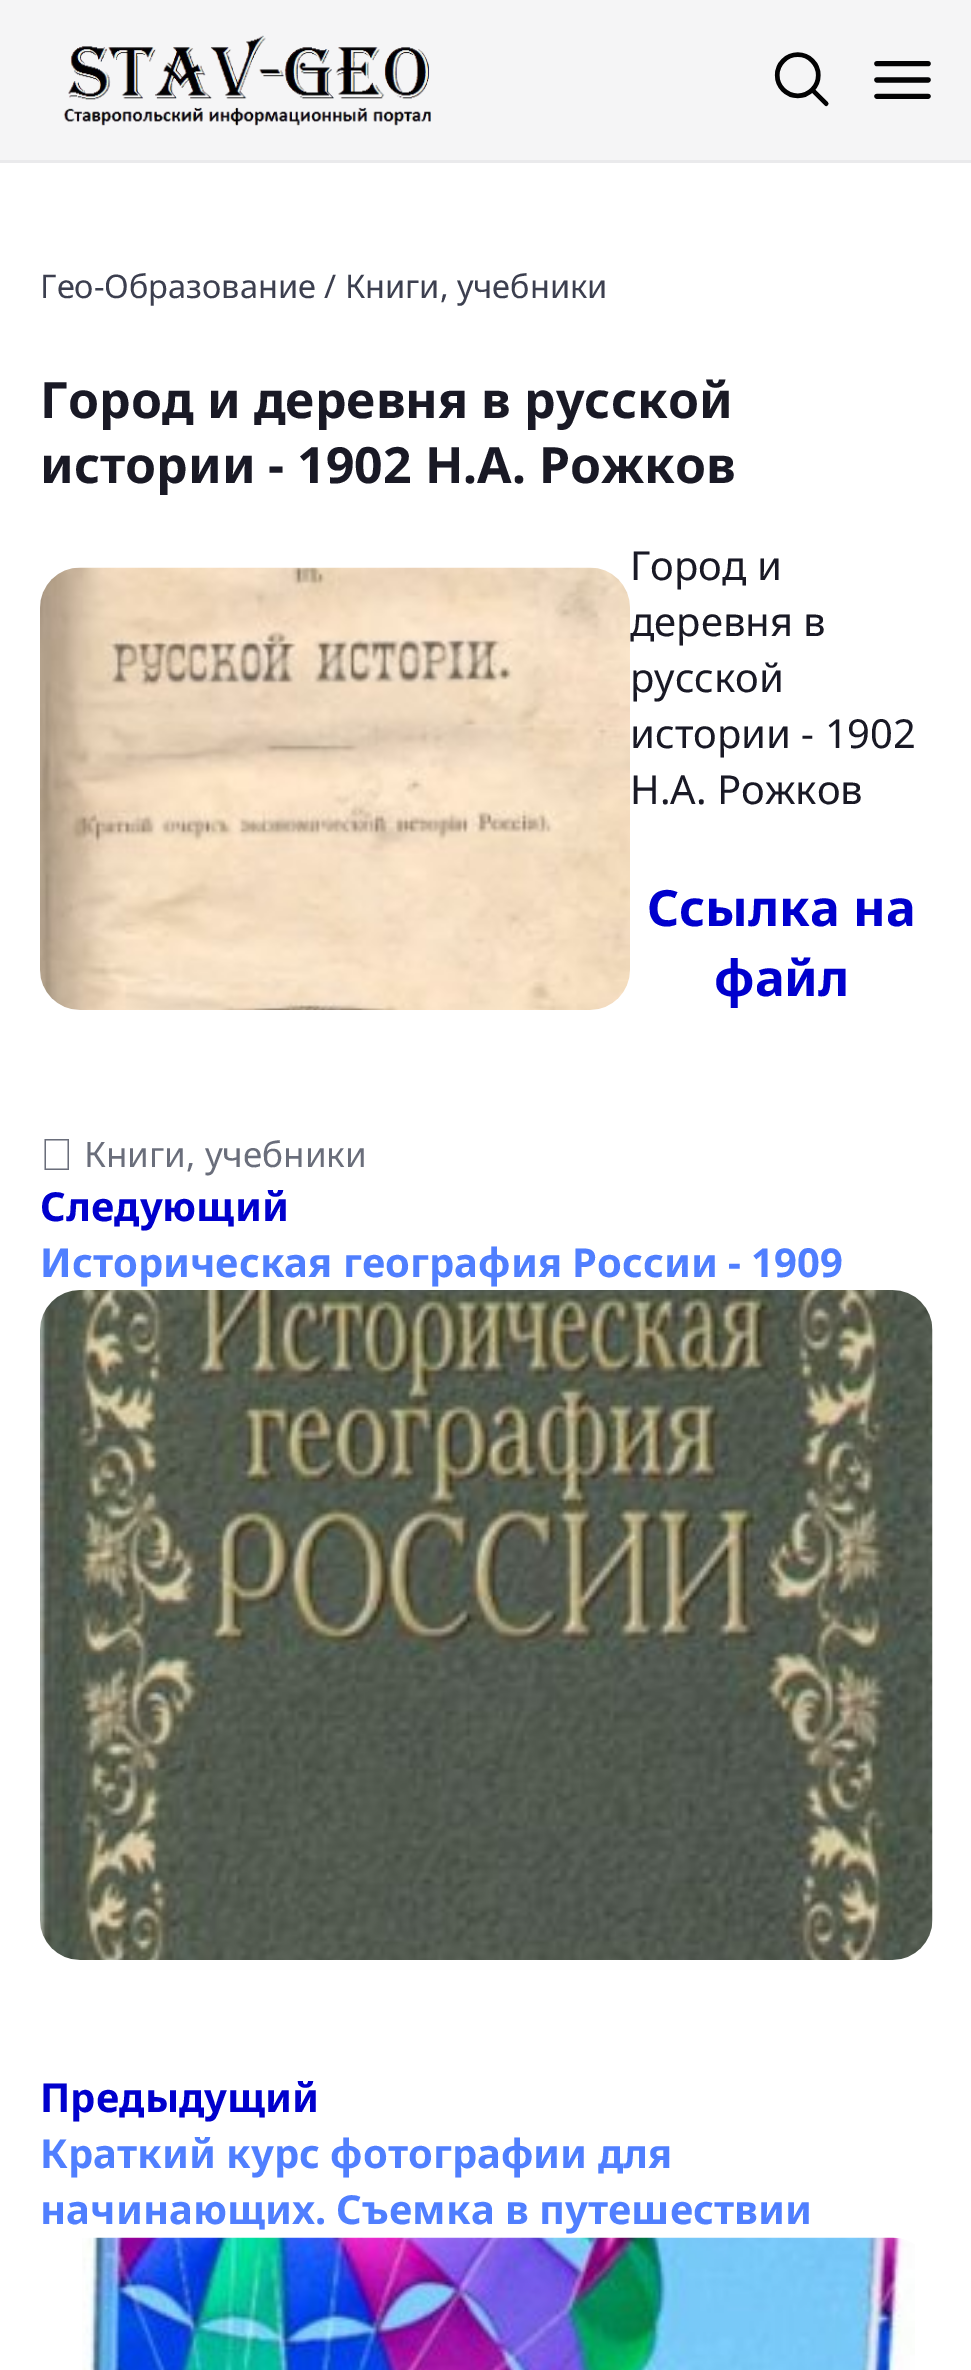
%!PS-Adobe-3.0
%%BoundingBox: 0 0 971 2370
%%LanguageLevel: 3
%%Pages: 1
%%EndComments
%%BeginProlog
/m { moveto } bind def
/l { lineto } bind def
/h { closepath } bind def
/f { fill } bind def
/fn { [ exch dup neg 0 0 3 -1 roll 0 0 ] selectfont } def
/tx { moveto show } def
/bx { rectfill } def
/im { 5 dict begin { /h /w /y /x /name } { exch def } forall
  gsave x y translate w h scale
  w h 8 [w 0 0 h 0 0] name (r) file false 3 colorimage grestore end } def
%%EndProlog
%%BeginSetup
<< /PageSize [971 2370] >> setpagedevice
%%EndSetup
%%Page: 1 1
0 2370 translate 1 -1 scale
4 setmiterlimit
1 setgray
0 0 971 2370 bx
0.961 0.961 0.965 setrgbcolor
0 0 971 160 bx
0.918 0.918 0.925 setrgbcolor
0 160 971 3 bx
(image0.raw) 63 35 368 91 im
(image1.raw) 774 52 55 55 im
(image2.raw) 874 61 57 38 im
/NotoSans-Regular 32.5 fn
0.235 0.247 0.31 setrgbcolor
(Гео-Образование / Книги, учебники) 40 298 tx
/NotoSans-Bold 50 fn
0.098 0.098 0.145 setrgbcolor
(Город и деревня в русской) 40 418 tx
(истории - 1902 Н.А. Рожков) 40 483 tx
(image3.raw) 40 567 590 443 im
/NotoSans-Regular 40 fn
(Город и) 630 580 tx
(деревня в) 630 636 tx
(русской) 630 692 tx
(истории - 1902) 630 748 tx
(Н.А. Рожков) 630 804 tx
/NotoSans-Bold 50 fn
0 0 0.804 setrgbcolor
(Ссылка на) 647 926 tx
(файл) 714 996 tx
0.416 0.431 0.482 setrgbcolor
44.5 1139 m 69 1139 l 69 1170 l 44.5 1170 l h 46 1140.5 m 46 1168.5 l 67.5 1168.5 l 67.5 1140.5 l h f
/NotoSans-Regular 35 fn
(Книги, учебники) 84 1167 tx
/NotoSans-Bold 40 fn
0 0 0.804 setrgbcolor
(Следующий) 40 1221 tx
0.314 0.498 1 setrgbcolor
(Историческая география России - 1909) 40 1277 tx
(image4.raw) 40 1290 893 670 im
0 0 0.804 setrgbcolor
(Предыдущий) 40 2112 tx
0.314 0.498 1 setrgbcolor
(Краткий курс фотографии для) 40 2168 tx
(начинающих. Съемка в путешествии) 40 2224 tx
(image5.raw) 82 2237 833 133 im
showpage
%%EOF
